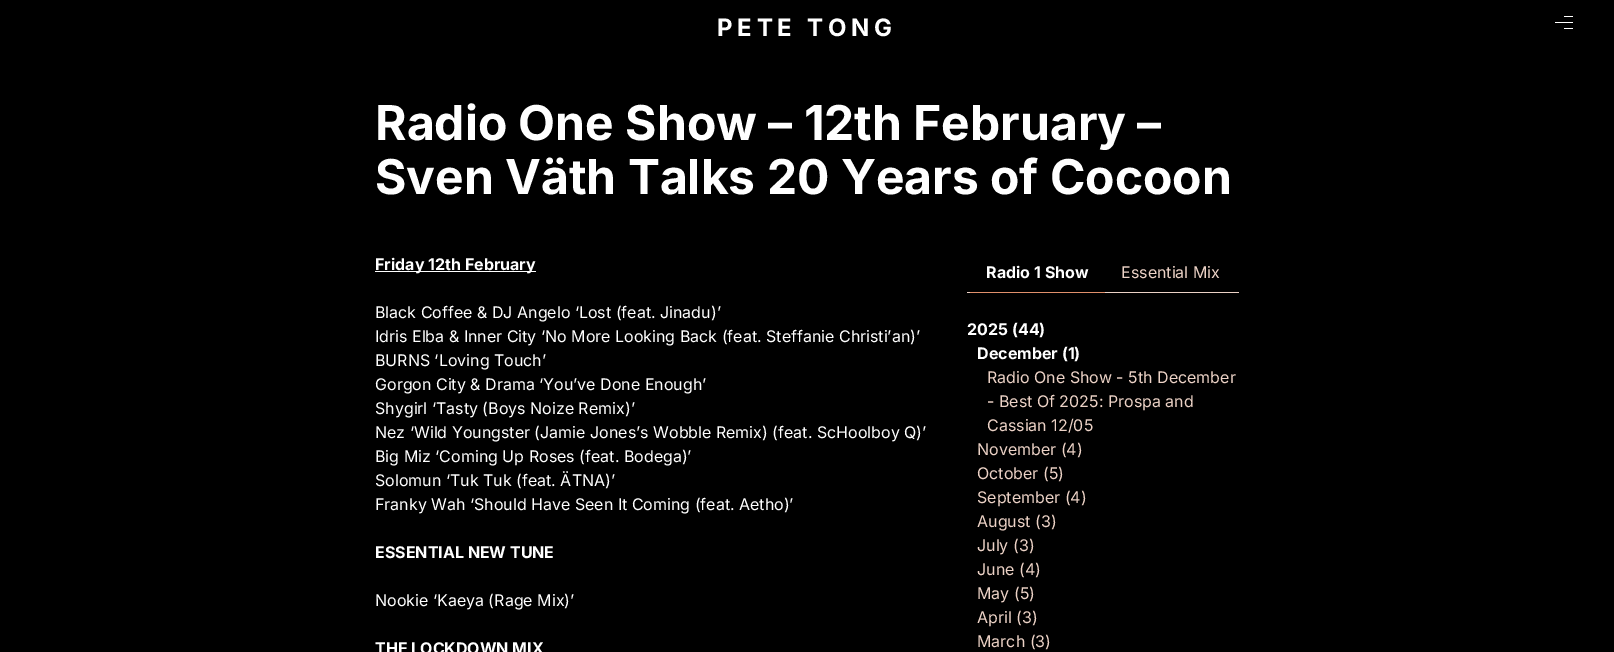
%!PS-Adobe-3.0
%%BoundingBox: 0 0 1614 652
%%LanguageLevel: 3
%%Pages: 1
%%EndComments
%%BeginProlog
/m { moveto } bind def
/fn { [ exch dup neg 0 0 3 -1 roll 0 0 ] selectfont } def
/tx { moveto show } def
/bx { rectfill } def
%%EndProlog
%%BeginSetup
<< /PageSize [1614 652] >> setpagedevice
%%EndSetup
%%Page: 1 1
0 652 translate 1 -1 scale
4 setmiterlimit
0 setgray
0 0 1614 652 bx
/Inter-Bold 24 fn
1 setgray
717 36 m 4.75 0 (PETE TONG) ashow
/Inter-Bold 48 fn
(Radio One Show – 12th February –) 375 140 tx
(Sven Väth Talks 20 Years of Cocoon) 375 194 tx
375 271 161 1 bx
/Inter-Bold 16 fn
(Friday 12th February) 375 270 tx
/Inter-Regular 16 fn
(Black Coffee & DJ Angelo ‘Lost \(feat. Jinadu\)’) 375 318 tx
(Idris Elba & Inner City ‘No More Looking Back \(feat. Steffanie Christi’an\)’) 375 342 tx
(BURNS ‘Loving Touch’) 375 366 tx
(Gorgon City & Drama ‘You’ve Done Enough’) 375 390 tx
(Shygirl ‘Tasty \(Boys Noize Remix\)’) 375 414 tx
(Nez ‘Wild Youngster \(Jamie Jones’s Wobble Remix\) \(feat. ScHoolboy Q\)’) 375 438 tx
(Big Miz ‘Coming Up Roses \(feat. Bodega\)’) 375 462 tx
(Solomun ‘Tuk Tuk \(feat. ÄTNA\)’) 375 486 tx
(Franky Wah ‘Should Have Seen It Coming \(feat. Aetho\)’) 375 510 tx
/Inter-Bold 16 fn
(ESSENTIAL NEW TUNE) 375 558 tx
/Inter-Regular 16 fn
(Nookie ‘Kaeya \(Rage Mix\)’) 375 606 tx
/Inter-Bold 16 fn
(THE LOCKDOWN MIX) 375 654 tx
0.925 0.824 0.776 setrgbcolor
967 292 272 1 bx
0.882 0.565 0.424 setrgbcolor
970 292 135 1 bx
1 setgray
(Radio 1 Show) 986 278 tx
/Inter-Regular 16 fn
0.925 0.824 0.776 setrgbcolor
(Essential Mix) 1121 278 tx
/Inter-Bold 16 fn
1 setgray
(2025 \(44\)) 967 335 tx
(December \(1\)) 977 359 tx
/Inter-Regular 16 fn
0.925 0.824 0.776 setrgbcolor
(Radio One Show - 5th December) 987 383 tx
(- Best Of 2025: Prospa and) 987 407 tx
(Cassian 12/05) 987 431 tx
(November \(4\)) 977 455 tx
(October \(5\)) 977 479 tx
(September \(4\)) 977 503 tx
(August \(3\)) 977 527 tx
(July \(3\)) 977 551 tx
(June \(4\)) 977 575 tx
(May \(5\)) 977 599 tx
(April \(3\)) 977 623 tx
(March \(3\)) 977 647 tx
1 setgray
1555 22 18 1 bx
1564 16 9 1 bx
1564 28 9 1 bx
showpage
%%EOF
